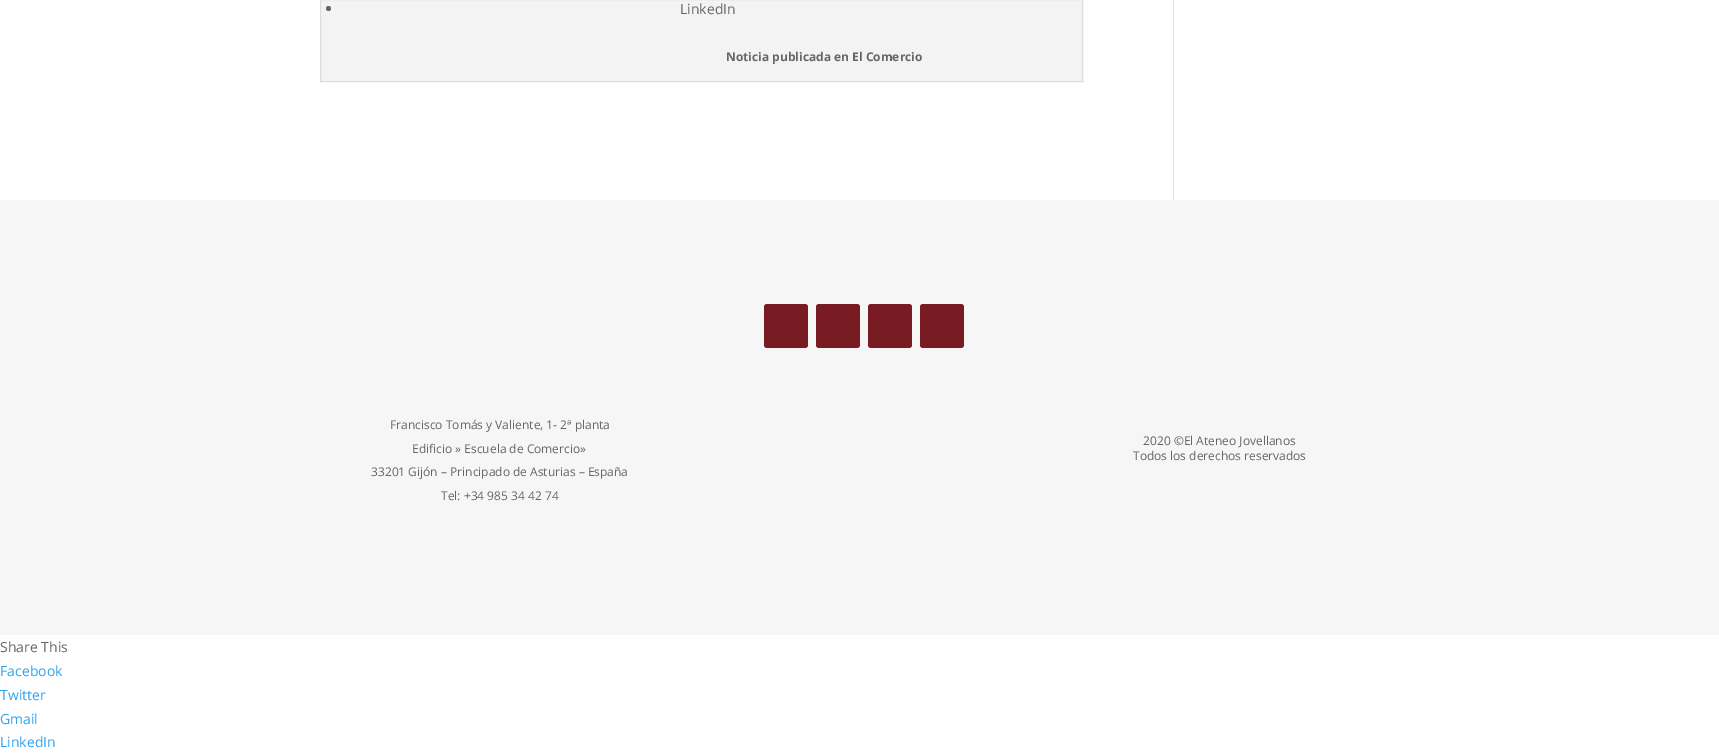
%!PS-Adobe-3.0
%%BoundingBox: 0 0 1719 754
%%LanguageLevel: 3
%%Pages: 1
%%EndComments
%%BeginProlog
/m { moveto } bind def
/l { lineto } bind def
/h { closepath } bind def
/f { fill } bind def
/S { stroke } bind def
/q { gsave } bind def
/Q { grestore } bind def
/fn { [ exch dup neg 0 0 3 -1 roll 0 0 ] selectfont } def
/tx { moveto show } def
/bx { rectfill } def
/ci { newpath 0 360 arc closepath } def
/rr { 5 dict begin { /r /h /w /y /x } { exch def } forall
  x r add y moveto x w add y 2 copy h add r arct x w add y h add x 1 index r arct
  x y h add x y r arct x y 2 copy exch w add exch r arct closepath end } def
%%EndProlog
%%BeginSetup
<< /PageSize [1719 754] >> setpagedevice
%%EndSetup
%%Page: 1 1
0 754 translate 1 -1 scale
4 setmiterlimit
1 setgray
0 0 1719 754 bx
0.953 setgray
320.5 -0.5 m 1082.5 -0.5 l 1082.5 81.5 l 320.5 81.5 l h q f Q
0.867 setgray
S
0.4 setgray
328.5 8.5 2.5 ci f
/OpenSans-Regular 14 fn
(LinkedIn) 680 14 tx
/OpenSans-Bold 12 fn
(Noticia publicada en El Comercio) 726 61 tx
0.886 setgray
1173 0 1 200 bx
0.965 setgray
0 200 1719 435 bx
0.475 0.106 0.133 setrgbcolor
764 304 44 44 3 rr f
816 304 44 44 3 rr f
868 304 44 44 3 rr f
920 304 44 44 3 rr f
/OpenSans-Regular 12 fn
0.4 setgray
(Francisco Tomás y Valiente, 1- 2ª planta) 390 429 tx
(Edificio » Escuela de Comercio») 412 453 tx
(33201 Gijón – Principado de Asturias – España) 371 476 tx
(Tel: +34 985 34 42 74) 441 500 tx
(2020 ©El Ateneo Jovellanos) 1143 445 tx
(Todos los derechos reservados) 1133 460 tx
/OpenSans-Regular 14 fn
(Share This) 0 652 tx
0.18 0.639 0.949 setrgbcolor
(Facebook) 0 676 tx
(Twitter) 0 700 tx
(Gmail) 0 724 tx
(LinkedIn) 0 747 tx
showpage
%%EOF
